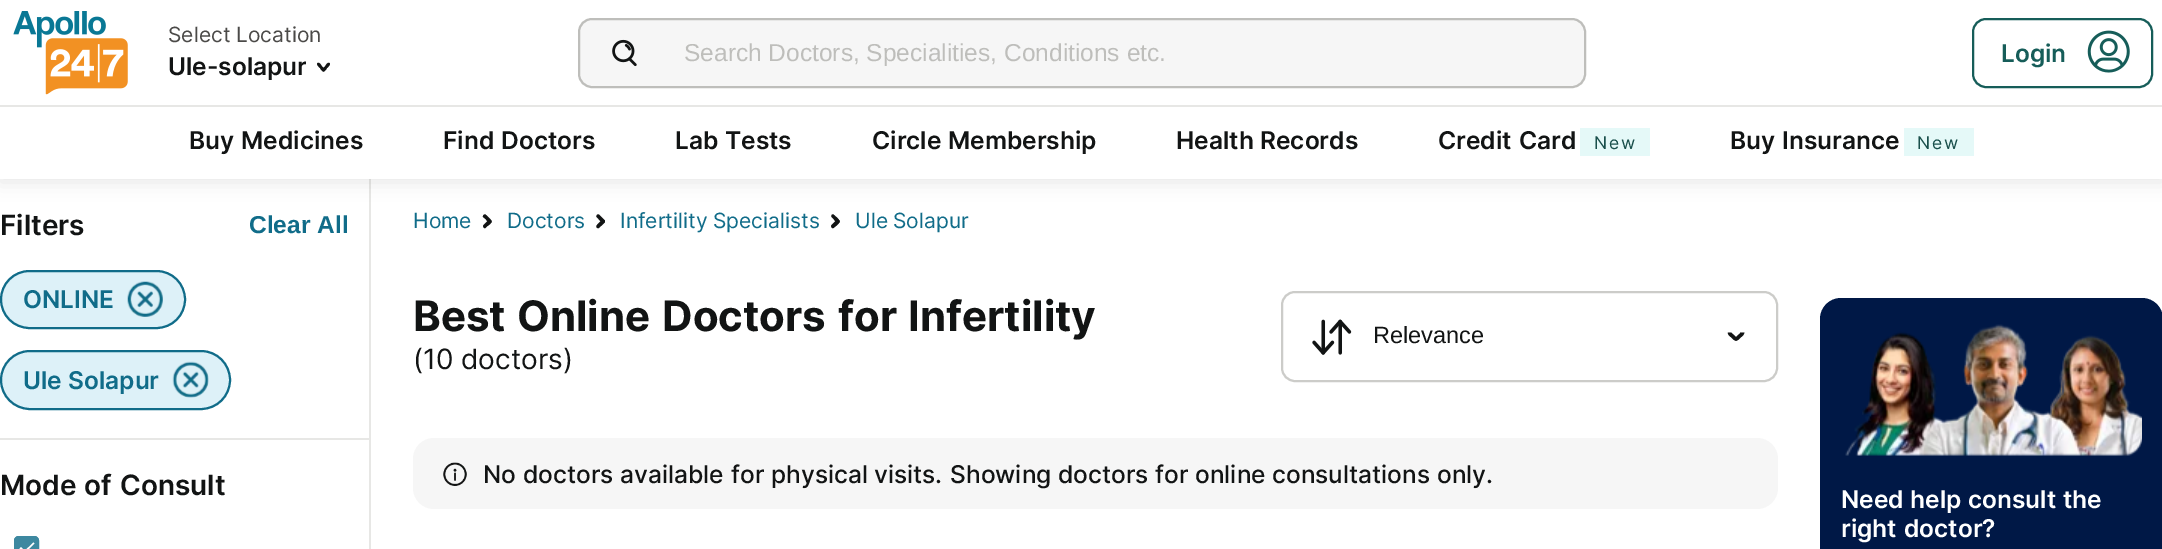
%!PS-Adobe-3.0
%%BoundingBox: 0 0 2162 549
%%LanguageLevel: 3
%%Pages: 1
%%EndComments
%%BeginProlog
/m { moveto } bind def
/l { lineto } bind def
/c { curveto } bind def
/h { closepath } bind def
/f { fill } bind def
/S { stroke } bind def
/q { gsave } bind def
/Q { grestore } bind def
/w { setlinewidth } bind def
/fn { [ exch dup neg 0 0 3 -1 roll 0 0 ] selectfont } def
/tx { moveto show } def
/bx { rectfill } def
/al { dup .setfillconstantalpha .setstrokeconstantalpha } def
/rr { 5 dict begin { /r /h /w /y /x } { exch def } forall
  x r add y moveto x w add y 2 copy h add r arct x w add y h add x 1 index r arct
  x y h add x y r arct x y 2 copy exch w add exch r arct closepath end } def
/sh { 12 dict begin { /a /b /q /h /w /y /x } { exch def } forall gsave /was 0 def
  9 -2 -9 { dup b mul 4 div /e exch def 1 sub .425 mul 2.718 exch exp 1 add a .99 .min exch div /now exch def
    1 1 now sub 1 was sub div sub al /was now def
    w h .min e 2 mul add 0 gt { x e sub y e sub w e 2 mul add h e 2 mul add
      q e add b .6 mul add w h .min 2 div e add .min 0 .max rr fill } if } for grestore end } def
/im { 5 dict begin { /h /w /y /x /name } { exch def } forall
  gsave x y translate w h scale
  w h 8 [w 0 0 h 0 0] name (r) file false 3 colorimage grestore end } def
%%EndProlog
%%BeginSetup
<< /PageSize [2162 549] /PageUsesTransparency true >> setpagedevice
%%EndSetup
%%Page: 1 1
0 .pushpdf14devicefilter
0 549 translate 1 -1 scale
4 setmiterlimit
1 setgray
0 0 2162 549 bx
0.906 0.906 0.898 setrgbcolor
369 179 2 370 bx
0 setgray
0 4 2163 178 0 9 0.1 sh
1 setgray
0 0 2162 179 bx
(image0.raw) 13 11 115 84 im
/Inter-Regular 21 fn
0.294 0.29 0.282 setrgbcolor
(Select) 168 42 tx
(Location) 236 42 tx
q
168 49 138 35 rectclip
/Inter-SemiBold 24.5 fn
0.071 0.078 0.078 setrgbcolor
(Ule-solapur) 168 75 tx
Q
0.071 0.078 0.078 setrgbcolor
329.5 63 m 331 64.5 328 67 327 68 c 326.5 69 324.5 72.5 322.5 71 c 321 70 324 67 325 66.5 c 325.5 65.5 327.5 62 329.5 63 c h f
324.5 71 m 322.5 72.5 320.5 69 320 68 c 319 67 316 64.5 317.5 63 c 319.5 62 321.5 65.5 322 66.5 c 323 67 326 70 324.5 71 c h f
0.965 setgray
579 19 1006 68 13 rr q f Q
0.745 0.745 0.733 setrgbcolor
2 w
S
(image1.raw) 612 39 25 28 im
/LiberationSans-Regular 24.5 fn
(Search Doctors, Specialities, Conditions etc.) 684 61 tx
0.086 0.365 0.349 setrgbcolor
1973 19 179 68 13 rr S
/Inter-SemiBold 24.5 fn
(Login) 2001 62 tx
(image2.raw) 2087 30 43 43 im
0.906 0.906 0.898 setrgbcolor
0 105 2162 2 bx
0.071 0.078 0.078 setrgbcolor
(Buy) 189 149 tx
(Medicines) 241 149 tx
(Find) 443 149 tx
(Doctors) 501 149 tx
(Lab) 675 149 tx
(Tests) 725 149 tx
(Circle) 872 149 tx
(Membership) 948 149 tx
(Health) 1176 149 tx
(Records) 1260 149 tx
(Credit) 1438 149 tx
(Card) 1519 149 tx
0.898 0.976 0.973 setrgbcolor
1580 128 70 28 bx
/Inter-Regular 17.5 fn
0.102 0.314 0.298 setrgbcolor
1594 149 m 2 0 (New) ashow
/Inter-SemiBold 24.5 fn
0.071 0.078 0.078 setrgbcolor
(Buy) 1730 149 tx
(Insurance) 1782 149 tx
0.898 0.976 0.973 setrgbcolor
1904 128 70 28 bx
/Inter-Regular 17.5 fn
0.102 0.314 0.298 setrgbcolor
1917 149 m 2 0 (New) ashow
/Inter-SemiBold 28 fn
0.071 0.078 0.078 setrgbcolor
(Filters) 0 235 tx
/LiberationSans-Bold 24.5 fn
0.063 0.424 0.537 setrgbcolor
(Clear All) 249 233 tx
0.867 0.945 0.973 setrgbcolor
1 271 184 57 28.5 rr q f Q
0.063 0.424 0.537 setrgbcolor
S
/Inter-SemiBold 24.5 fn
(ONLINE) 23 308 tx
(image3.raw) 127 281 36 36 im
0.867 0.945 0.973 setrgbcolor
1 351 229 58 29 rr q f Q
0.063 0.424 0.537 setrgbcolor
S
(Ule) 23 389 tx
(Solapur) 68 389 tx
(image4.raw) 172 361 37 37 im
0.906 0.906 0.898 setrgbcolor
0 438 369 2 bx
/Inter-SemiBold 28 fn
0.071 0.078 0.078 setrgbcolor
(Mode) 0 495 tx
(of) 84 495 tx
(Consult) 120 495 tx
0.239 0.533 0.627 setrgbcolor
19 536 m 34 536 l 37 536 39 538 39 541 c 39 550 l 14 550 l 14 541 l 14 538 16 536 19 536 c h f
15 537 23 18 4 rr S
1 setgray
23.5 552 m 33.5 542.5 l 34.5 543.5 l 24.5 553.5 l h 19.5 548.5 m 21 547 l 26 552 l 24.5 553.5 l h f
/Inter-Regular 21 fn
0.063 0.424 0.537 setrgbcolor
(Home) 413 228 tx
0.071 0.078 0.078 setrgbcolor
486 215 m 487 216 494.5 222 490 223 c 488.5 223.5 486.5 220 485.5 219 c 483 217 l 482.5 215 485 213.5 486 215 c h f
483.5 225 m 484.5 224.5 490.5 216.5 491.5 221 c 492 223 489 225 487.5 226 c 485.5 228 l 484 229 482.5 226.5 483.5 225 c h f
0.063 0.424 0.537 setrgbcolor
(Doctors) 507 228 tx
0.071 0.078 0.078 setrgbcolor
599.5 215 m 600 216 608 222 603.5 223 c 602 223.5 599.5 220 598.5 219 c 596.5 217 l 596 215 598 213.5 599.5 215 c h f
597 225 m 597.5 224.5 604 216.5 605 221 c 605 223 602 225 601 226 c 599 228 l 597 229 595.5 226.5 597 225 c h f
0.063 0.424 0.537 setrgbcolor
(Infertility) 620 228 tx
(Specialists) 713 228 tx
0.071 0.078 0.078 setrgbcolor
834 215 m 835 216 843 222 838 223 c 836.5 223.5 834.5 220 833.5 219 c 831.5 217 l 830.5 215 833 213.5 834 215 c h f
831.5 225 m 832.5 224.5 838.5 216.5 839.5 221 c 840 223 837 225 836 226 c 833.5 228 l 832 229 830.5 226.5 831.5 225 c h f
0.063 0.424 0.537 setrgbcolor
(Ule) 855 228 tx
(Solapur) 893 228 tx
/Inter-Bold 42 fn
0.071 0.078 0.078 setrgbcolor
(Best) 413 331 tx
(Online) 517 331 tx
(Doctors) 662 331 tx
(for) 838 331 tx
(Infertility) 908 331 tx
/Inter-Regular 28 fn
(\(10) 413 369 tx
(doctors\)) 461 369 tx
0.8 0.8 0.788 setrgbcolor
1282 292 495 89 13 rr S
(image5.raw) 1312 319 40 36 im
/LiberationSans-Regular 23.5 fn
0.071 0.078 0.078 setrgbcolor
(Relevance) 1373 343 tx
3.5 w
1742.5 332.5 m 1742.5 334 1740.5 335.5 1739.5 336 c 1736 340 1736 340 1732.5 336 c 1731.5 335.5 1729.5 334 1729.5 332.5 c S
0.965 setgray
413 438 1365 71 21 rr f
(image6.raw) 443 462 24 24 im
/Inter-Medium 24.5 fn
0.071 0.078 0.078 setrgbcolor
(No) 483 483 tx
(doctors) 523 483 tx
(available) 620 483 tx
(for) 731 483 tx
(physical) 771 483 tx
(visits.) 874 483 tx
(Showing) 950 483 tx
(doctors) 1058 483 tx
(for) 1155 483 tx
(online) 1195 483 tx
(consultations) 1272 483 tx
(only.) 1437 483 tx
0 0.094 0.275 setrgbcolor
1820 298 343 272 21 rr f
(image7.raw) 1845 324 297 132 im
/Inter-SemiBold 24.5 fn
1 setgray
(Need) 1841 508 tx
(help) 1910 508 tx
(consult) 1968 508 tx
(the) 2063 508 tx
(right) 1841 537 tx
(doctor?) 1904 537 tx
.poppdf14devicefilter showpage
%%EOF
